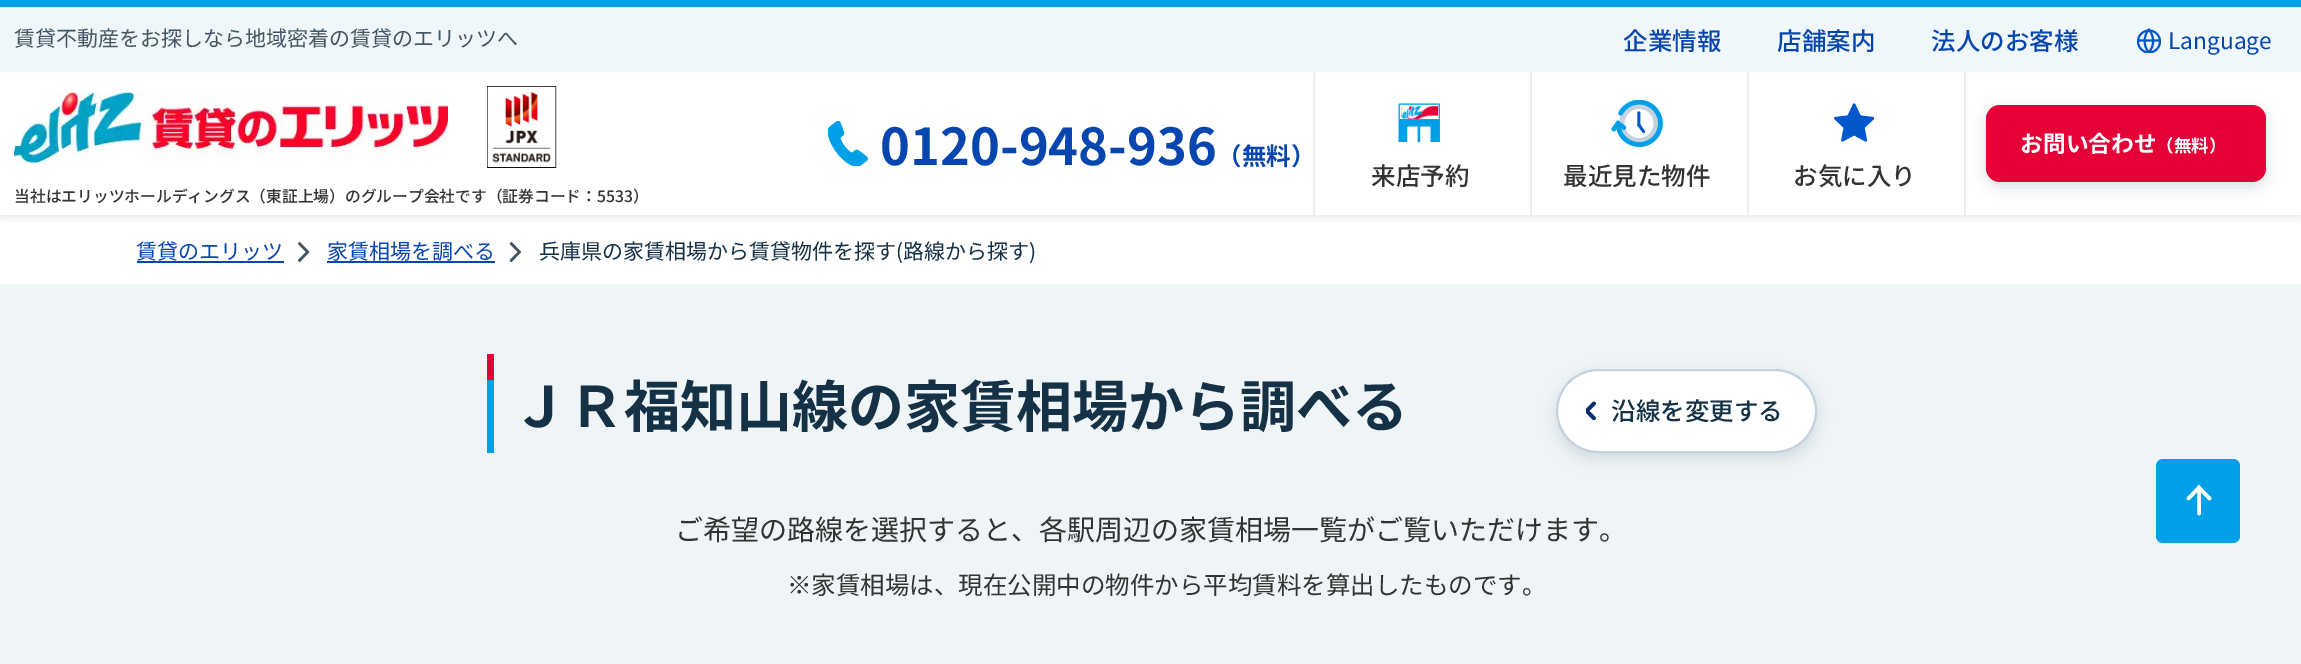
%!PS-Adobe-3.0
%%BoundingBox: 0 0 2301 664
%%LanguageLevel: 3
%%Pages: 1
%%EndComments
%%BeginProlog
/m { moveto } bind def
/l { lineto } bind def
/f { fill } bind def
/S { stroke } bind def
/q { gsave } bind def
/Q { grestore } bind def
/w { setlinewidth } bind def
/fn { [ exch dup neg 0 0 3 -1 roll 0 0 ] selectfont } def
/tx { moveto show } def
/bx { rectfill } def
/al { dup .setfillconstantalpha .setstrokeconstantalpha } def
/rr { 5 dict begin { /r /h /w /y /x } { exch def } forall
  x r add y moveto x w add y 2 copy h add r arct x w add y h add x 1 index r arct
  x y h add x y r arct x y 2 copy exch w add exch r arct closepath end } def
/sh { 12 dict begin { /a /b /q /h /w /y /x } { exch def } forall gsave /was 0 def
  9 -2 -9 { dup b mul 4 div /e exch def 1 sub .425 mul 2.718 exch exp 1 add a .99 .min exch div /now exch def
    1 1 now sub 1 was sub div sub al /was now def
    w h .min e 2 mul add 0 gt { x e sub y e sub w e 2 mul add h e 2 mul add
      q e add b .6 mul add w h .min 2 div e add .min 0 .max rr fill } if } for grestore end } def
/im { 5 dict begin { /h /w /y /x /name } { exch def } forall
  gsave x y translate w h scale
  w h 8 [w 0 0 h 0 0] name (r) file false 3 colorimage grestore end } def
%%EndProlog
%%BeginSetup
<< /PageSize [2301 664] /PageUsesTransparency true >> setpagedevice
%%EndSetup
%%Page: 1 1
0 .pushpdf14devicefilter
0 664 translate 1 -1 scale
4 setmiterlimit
1 setgray
0 0 2301 664 bx
q
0 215 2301 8 rectclip
0.082 0.192 0.275 setrgbcolor
0 0 2301 215 0 7 0.16 sh
Q
0 0.627 0.91 setrgbcolor
0 0 2301 7 bx
0.941 0.969 0.98 setrgbcolor
0 7 2301 65 bx
/NotoSansJP-Regular 21 fn
0.267 0.337 0.392 setrgbcolor
(賃貸不動産をお探しなら地域密着の賃貸のエリッツへ) 14 46 tx
/NotoSansJP-Medium 24.5 fn
0.027 0.271 0.686 setrgbcolor
(企業情報) 1623 50 tx
(店舗案内) 1777 50 tx
(法人のお客様) 1931 50 tx
(image0.raw) 2137 28 24 25 im
/NotoSansJP-Regular 22.75 fn
(Language) 2168 49 tx
(image1.raw) 828 121 40 45 im
/NotoSansJP-Bold 50.75 fn
(0120-948-936) 880 165 tx
/NotoSansJP-Bold 24.5 fn
(（無料）) 1217 165 tx
0.933 setgray
1313 72 2 143 bx
(image2.raw) 1398 103 43 39 im
/NotoSansJP-Medium 24.5 fn
0.2 setgray
(来店予約) 1371 185 tx
0.933 setgray
1530 72 2 143 bx
(image3.raw) 1611 100 52 47 im
0.2 setgray
(最近見た物件) 1563 185 tx
0.933 setgray
1747 72 2 143 bx
(image4.raw) 1834 103 40 39 im
0.2 setgray
(お気に入り) 1793 185 tx
0.082 0.192 0.275 setrgbcolor
1986 110 280 77 14 7 0.16 sh
0.933 setgray
1964 72 2 143 bx
0.898 0 0.22 setrgbcolor
1986 105 280 77 14 rr f
/NotoSansJP-Bold 22.75 fn
1 setgray
(お問い合わせ) 2020 152 tx
/NotoSansJP-Bold 17.5 fn
(（無料）) 2156 152 tx
(image5.raw) 14 92 434 71 im
(image6.raw) 487 86 70 82 im
/NotoSansJP-Medium 15.75 fn
0.2 setgray
(当社はエリッツホールディングス（東証上場）のグループ会社です（証券コード：5533）) 14 202 tx
0.937 0.957 0.965 setrgbcolor
0 284 2301 380 bx
/NotoSansJP-Regular 21 fn
0.027 0.271 0.686 setrgbcolor
(賃貸のエリッツ) 136 259 tx
137 261 147 2 bx
(image7.raw) 298 242 12 20 im
(家賃相場を調べる) 327 259 tx
327 261 168 2 bx
(image8.raw) 509 242 13 20 im
0.082 0.192 0.275 setrgbcolor
(兵庫県の家賃相場から賃貸物件を探す\(路線から探す\)) 539 259 tx
0.902 0 0.224 setrgbcolor
487 354 7 26 bx
0 0.627 0.91 setrgbcolor
487 380 7 73 bx
/NotoSansJP-Bold 56 fn
0.082 0.192 0.275 setrgbcolor
(ＪＲ福知山線の家賃相場から調べる) 512 427 tx
1556 375 261 84 42 7 0.12 sh
1 setgray
1557 370 259 82 41 rr q f Q
0.765 0.824 0.871 setrgbcolor
2 w
S
(image9.raw) 1586 401 10 19 im
/NotoSansJP-Medium 24.5 fn
0.082 0.192 0.275 setrgbcolor
(沿線を変更する) 1611 420 tx
/NotoSansJP-Regular 28 fn
0.2 setgray
(ご希望の路線を選択すると、各駅周辺の家賃相場一覧がご覧いただけます。) 675 540 tx
/NotoSansJP-Regular 24.5 fn
(※) 787 594 tx
(家賃相場は、現在公開中の物件から平均賃料を算出したものです。) 811 594 tx
0 0.627 0.91 setrgbcolor
2156 459 84 84 7 rr f
1 setgray
3.6 w
1 setlinecap
2188.5 498.5 m 2199 487.5 l 2209.5 498.5 l 2199 513.5 m 2199 488.5 l S
.poppdf14devicefilter showpage
%%EOF
